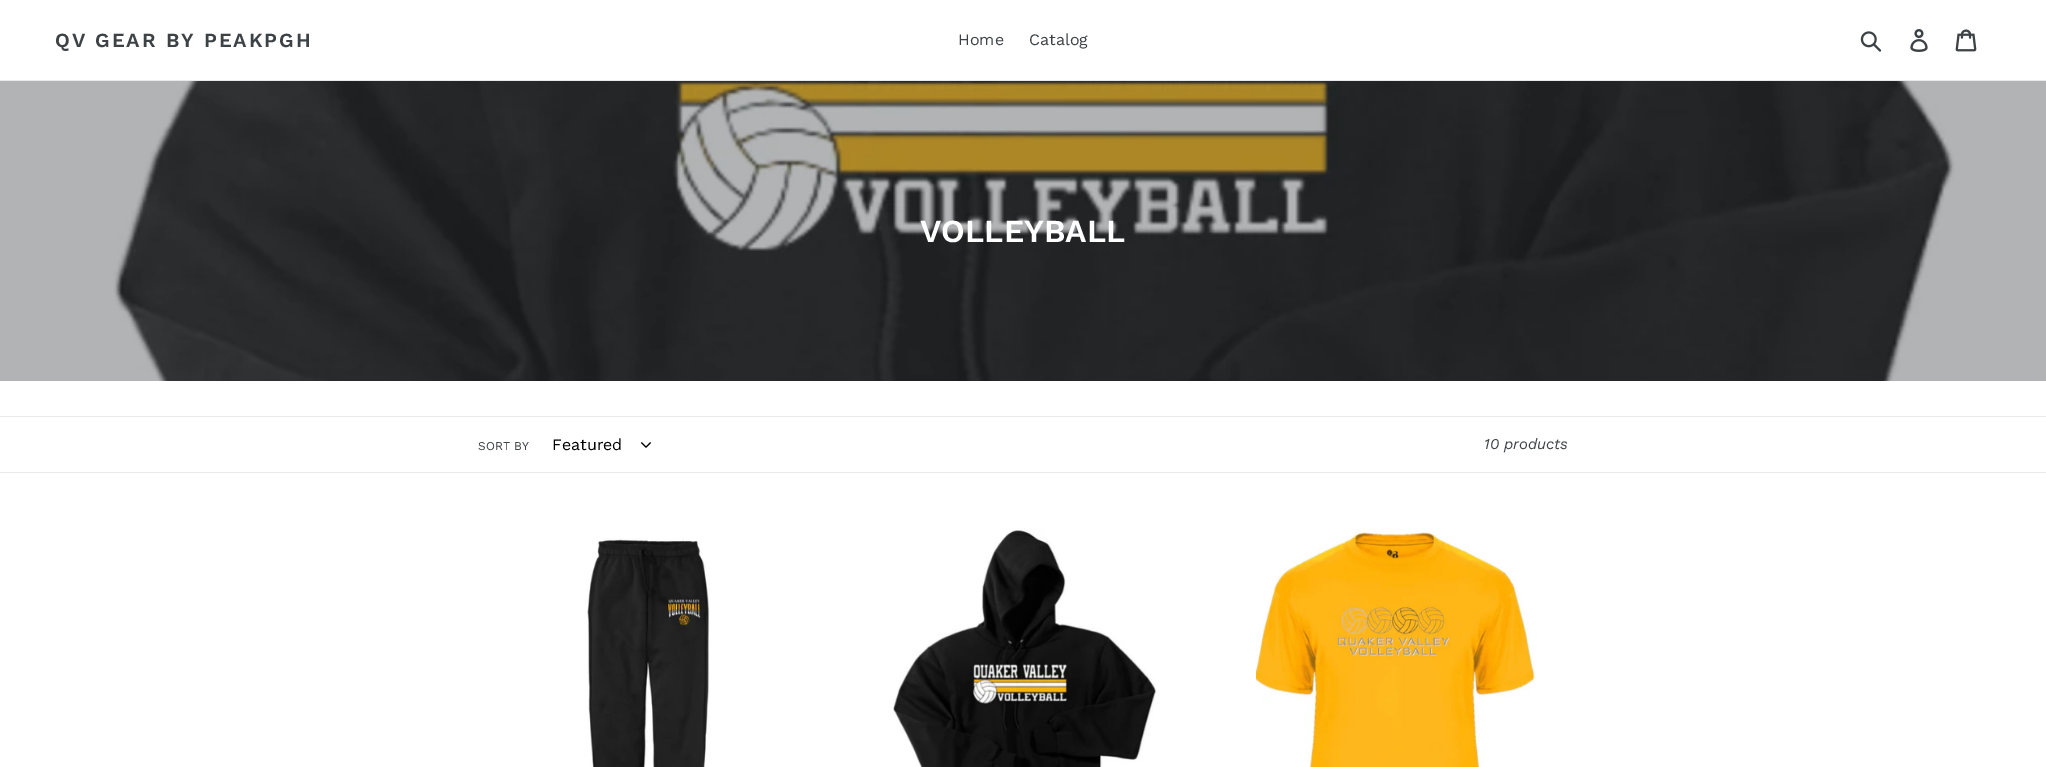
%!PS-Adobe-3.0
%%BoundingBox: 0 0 2046 767
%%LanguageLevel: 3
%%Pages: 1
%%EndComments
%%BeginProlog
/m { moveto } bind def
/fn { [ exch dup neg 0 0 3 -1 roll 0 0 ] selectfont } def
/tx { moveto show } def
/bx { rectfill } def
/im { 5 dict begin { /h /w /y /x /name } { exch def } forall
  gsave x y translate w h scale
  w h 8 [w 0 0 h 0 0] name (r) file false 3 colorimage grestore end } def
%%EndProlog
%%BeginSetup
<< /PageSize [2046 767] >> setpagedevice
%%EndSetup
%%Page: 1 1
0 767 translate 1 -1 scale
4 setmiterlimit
1 setgray
0 0 2046 767 bx
0.694 0.702 0.71 setrgbcolor
0 81 2046 300 bx
0.91 0.914 0.922 setrgbcolor
0 80 2046 1 bx
/WorkSans-SemiBold 20 fn
0.239 0.259 0.275 setrgbcolor
55 47 m 2 0 (QV GEAR BY PEAKPGH) ashow
/WorkSans-Regular 16 fn
(Home) 958 45 tx
(Catalog) 1029 45 tx
(image0.raw) 1860 31 22 21 im
(image1.raw) 1910 29 18 23 im
(image2.raw) 1955 29 22 23 im
(image3.raw) 113 81 1842 300 im
/WorkSans-SemiBold 32 fn
1 setgray
(VOLLEYBALL) 920 242 tx
0.91 0.914 0.922 setrgbcolor
0 416 2046 1 bx
0 472 2046 1 bx
/WorkSans-Regular 12 fn
0.239 0.259 0.275 setrgbcolor
(SORT BY) 478 450 tx
/WorkSans-Regular 16 fn
0 setgray
(Featured) 552 450 tx
(image4.raw) 641 442 10 6 im
/WorkSans-Italic 15 fn
0.239 0.259 0.275 setrgbcolor
(10 products) 1484 449 tx
(image5.raw) 587 538 123 229 im
(image6.raw) 893 528 264 239 im
(image7.raw) 1256 528 280 239 im
showpage
%%EOF
